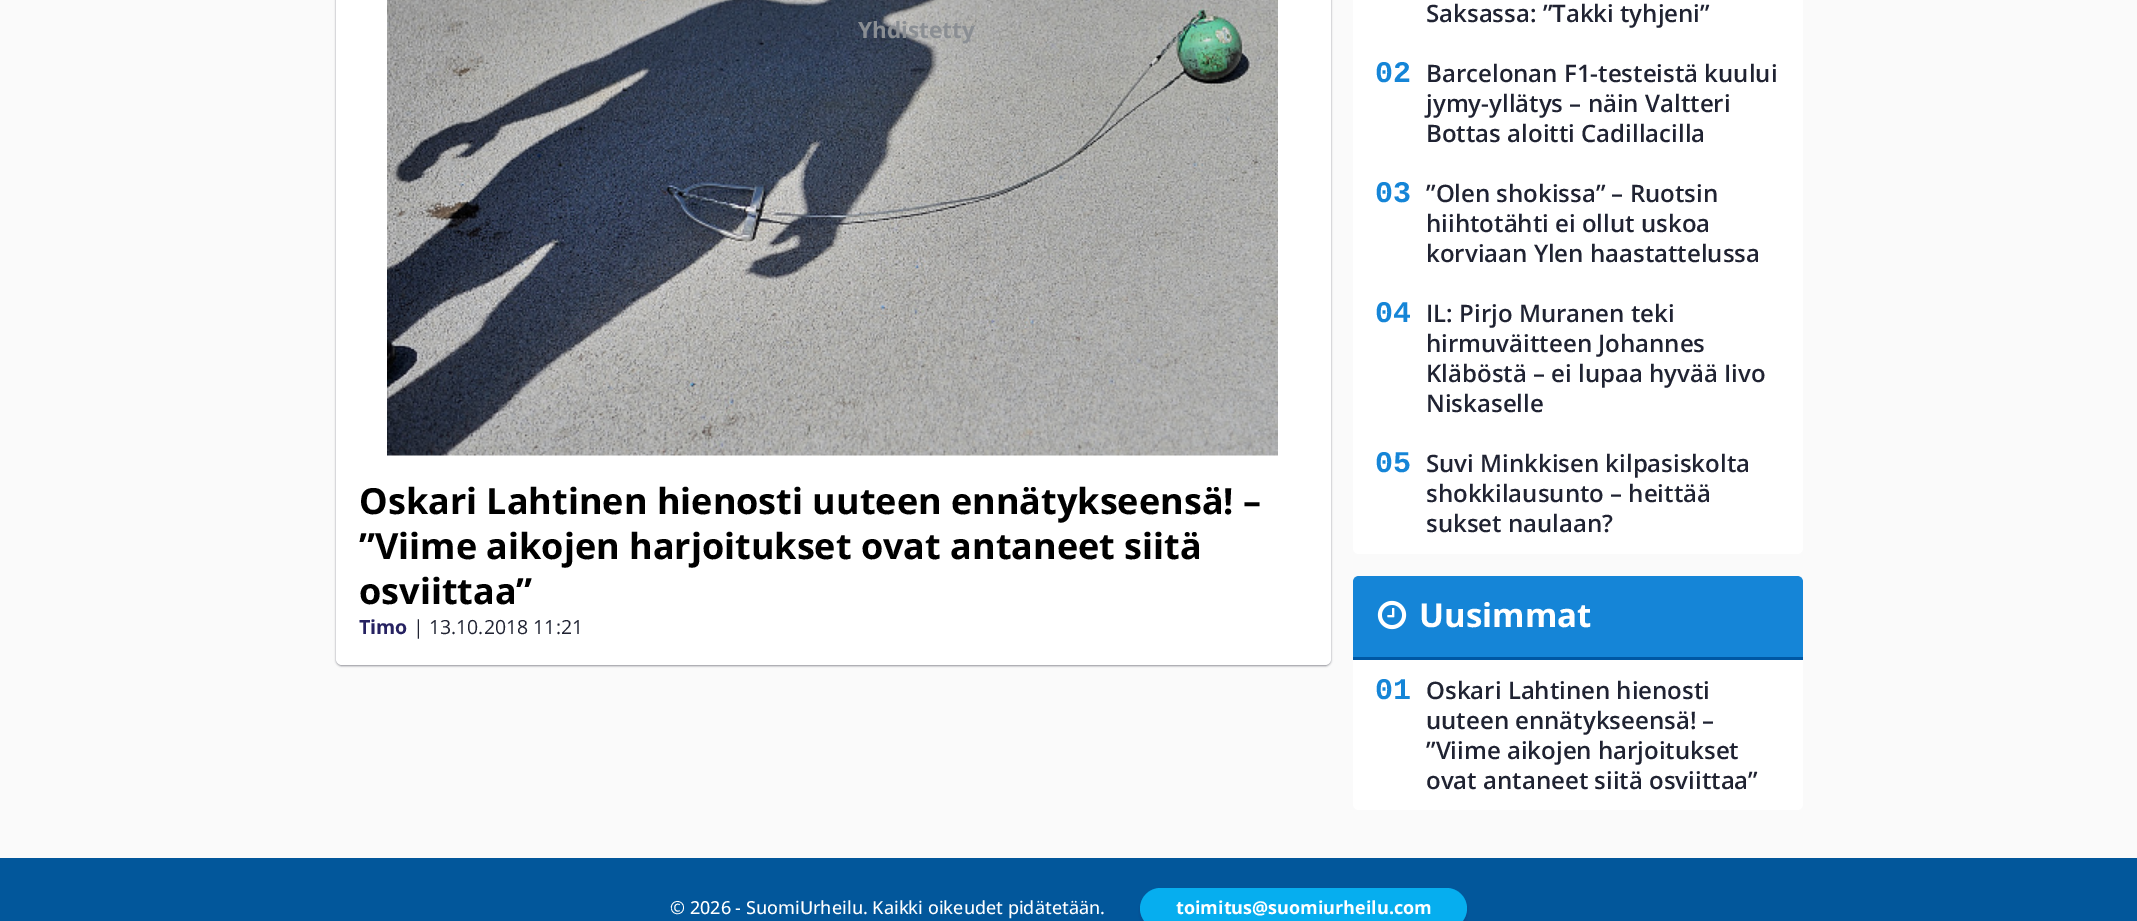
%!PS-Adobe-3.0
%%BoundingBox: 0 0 2137 921
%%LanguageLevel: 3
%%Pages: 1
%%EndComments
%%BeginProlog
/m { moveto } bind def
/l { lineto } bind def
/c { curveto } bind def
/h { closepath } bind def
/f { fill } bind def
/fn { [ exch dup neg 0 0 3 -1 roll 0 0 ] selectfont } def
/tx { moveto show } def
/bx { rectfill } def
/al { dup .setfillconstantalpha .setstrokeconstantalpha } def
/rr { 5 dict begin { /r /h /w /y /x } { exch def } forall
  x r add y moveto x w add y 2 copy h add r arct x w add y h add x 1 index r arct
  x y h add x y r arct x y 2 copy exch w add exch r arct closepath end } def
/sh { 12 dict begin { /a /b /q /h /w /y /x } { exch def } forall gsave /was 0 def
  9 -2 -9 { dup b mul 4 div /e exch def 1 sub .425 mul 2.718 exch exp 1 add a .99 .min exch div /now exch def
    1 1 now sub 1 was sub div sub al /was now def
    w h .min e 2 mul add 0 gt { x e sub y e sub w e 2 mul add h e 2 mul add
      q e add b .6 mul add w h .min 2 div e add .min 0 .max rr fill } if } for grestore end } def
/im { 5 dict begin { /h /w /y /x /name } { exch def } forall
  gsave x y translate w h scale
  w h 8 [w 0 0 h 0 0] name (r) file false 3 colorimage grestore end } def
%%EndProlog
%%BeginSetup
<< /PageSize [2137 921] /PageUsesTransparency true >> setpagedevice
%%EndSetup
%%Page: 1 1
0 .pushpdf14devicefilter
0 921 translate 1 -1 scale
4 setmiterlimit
0.98 setgray
0 0 2137 921 bx
0.125 0.137 0.196 setrgbcolor
336 -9 995 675 6 1 0.5 sh
1 setgray
336 -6 995 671 6 rr f
(image0.raw) 387 0 891 456 im
/OpenSans-Bold 36 fn
0 setgray
(Oskari Lahtinen hienosti uuteen ennätykseensä! –) 359 514 tx
(”Viime aikojen harjoitukset ovat antaneet siitä) 359 559 tx
(osviittaa”) 359 604 tx
/OpenSans-Bold 19.5 fn
0.149 0.133 0.38 setrgbcolor
(Timo) 359 634 tx
/OpenSans-Regular 19.5 fn
0.125 0.137 0.196 setrgbcolor
(| 13.10.2018 11:21) 413 634 tx
1 setgray
1353 -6 450 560 6 rr f
/OpenSans-SemiBold 24 fn
0.125 0.137 0.196 setrgbcolor
(Saksassa: ”Takki tyhjeni”) 1426 22 tx
/LiberationMono-Bold 30 fn
0.082 0.522 0.843 setrgbcolor
(02) 1375 82 tx
/OpenSans-SemiBold 24 fn
0.125 0.137 0.196 setrgbcolor
(Barcelonan F1-testeistä kuului) 1426 82 tx
(jymy-yllätys – näin Valtteri) 1426 112 tx
(Bottas aloitti Cadillacilla) 1426 142 tx
/LiberationMono-Bold 30 fn
0.082 0.522 0.843 setrgbcolor
(03) 1375 202 tx
/OpenSans-SemiBold 24 fn
0.125 0.137 0.196 setrgbcolor
(”Olen shokissa” – Ruotsin) 1426 202 tx
(hiihtotähti ei ollut uskoa) 1426 232 tx
(korviaan Ylen haastattelussa) 1426 262 tx
/LiberationMono-Bold 30 fn
0.082 0.522 0.843 setrgbcolor
(04) 1375 322 tx
/OpenSans-SemiBold 24 fn
0.125 0.137 0.196 setrgbcolor
(IL: Pirjo Muranen teki) 1426 322 tx
(hirmuväitteen Johannes) 1426 352 tx
(Kläböstä – ei lupaa hyvää Iivo) 1426 382 tx
(Niskaselle) 1426 412 tx
/LiberationMono-Bold 30 fn
0.082 0.522 0.843 setrgbcolor
(05) 1375 472 tx
/OpenSans-SemiBold 24 fn
0.125 0.137 0.196 setrgbcolor
(Suvi Minkkisen kilpasiskolta) 1426 472 tx
(shokkilausunto – heittää) 1426 502 tx
(sukset naulaan?) 1426 532 tx
1 setgray
1353 576 450 234 6 rr f
0.082 0.522 0.843 setrgbcolor
1359 576 m 1797 576 l 1800.5 576 1803 578.5 1803 582 c 1803 660 l 1353 660 l 1353 582 l 1353 578.5 1355.5 576 1359 576 c h f
0 0.345 0.643 setrgbcolor
1353 657 450 3 bx
(image1.raw) 1377 600 30 30 im
/OpenSans-Bold 33 fn
1 setgray
(Uusimmat) 1419 627 tx
/LiberationMono-Bold 30 fn
0.082 0.522 0.843 setrgbcolor
(01) 1375 699 tx
/OpenSans-SemiBold 24 fn
0.125 0.137 0.196 setrgbcolor
(Oskari Lahtinen hienosti) 1426 699 tx
(uuteen ennätykseensä! –) 1426 729 tx
(”Viime aikojen harjoitukset) 1426 759 tx
(ovat antaneet siitä osviittaa”) 1426 789 tx
/OpenSans-Bold 22.5 fn
0.541 0.557 0.576 setrgbcolor
(Yhdistetty) 858 38 tx
0.008 0.341 0.608 setrgbcolor
0 858 2137 63 bx
/OpenSans-Medium 18 fn
1 setgray
(© 2026 - SuomiUrheilu. Kaikki oikeudet pidätetään.) 670 914 tx
0.149 0.133 0.38 setrgbcolor
1140 891 327 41 20.5 1.5 0.3 sh
0.024 0.682 0.937 setrgbcolor
1140 888 327 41 20.5 rr f
/OpenSans-Bold 18 fn
1 setgray
(toimitus@suomiurheilu.com) 1176 914 tx
.poppdf14devicefilter showpage
%%EOF
